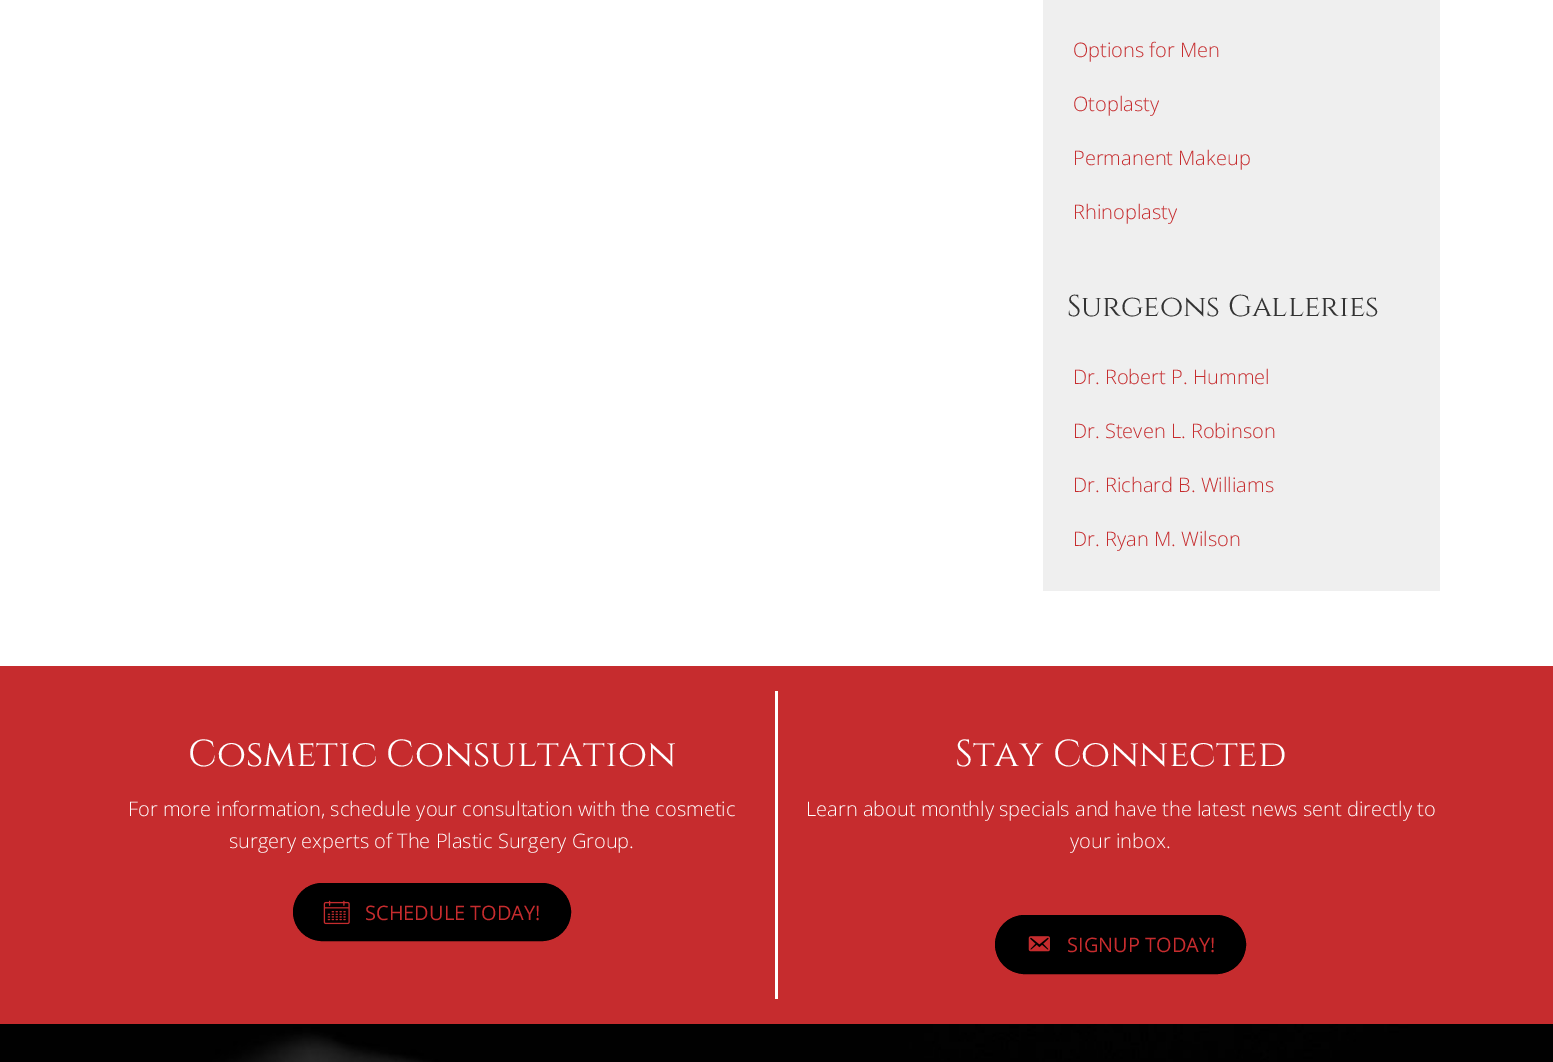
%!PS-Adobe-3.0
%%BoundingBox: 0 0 1553 1062
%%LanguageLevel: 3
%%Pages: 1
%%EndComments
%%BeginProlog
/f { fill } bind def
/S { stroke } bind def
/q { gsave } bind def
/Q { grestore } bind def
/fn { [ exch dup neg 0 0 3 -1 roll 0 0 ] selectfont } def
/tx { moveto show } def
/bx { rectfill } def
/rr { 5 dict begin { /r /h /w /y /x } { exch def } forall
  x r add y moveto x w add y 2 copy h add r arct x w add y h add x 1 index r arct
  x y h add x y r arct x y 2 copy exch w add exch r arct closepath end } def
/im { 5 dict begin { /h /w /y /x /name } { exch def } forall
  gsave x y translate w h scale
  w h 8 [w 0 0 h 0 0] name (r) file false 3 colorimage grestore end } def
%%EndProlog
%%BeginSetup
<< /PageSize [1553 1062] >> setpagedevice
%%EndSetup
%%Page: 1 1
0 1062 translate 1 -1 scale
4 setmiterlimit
1 setgray
0 0 1553 1062 bx
0.937 setgray
1043 0 397 591 bx
/OpenSans-Light 20 fn
0.776 0.173 0.18 setrgbcolor
(Options for Men) 1073 57 tx
(Otoplasty) 1073 111 tx
(Permanent Makeup) 1073 165 tx
(Rhinoplasty) 1073 219 tx
/Cinzel-Regular 30 fn
0.2 setgray
(Surgeons Galleries) 1067 316 tx
/OpenSans-Light 20 fn
0.776 0.173 0.18 setrgbcolor
(Dr. Robert P. Hummel) 1073 384 tx
(Dr. Steven L. Robinson) 1073 438 tx
(Dr. Richard B. Williams) 1073 492 tx
(Dr. Ryan M. Wilson) 1073 546 tx
0 666 1553 358 bx
1 setgray
775 691 3 308 bx
/Cinzel-Regular 37.5 fn
(Cosmetic Consultation) 188 766 tx
/OpenSans-Light 20 fn
(For more information, schedule your consultation with the cosmetic) 128 816 tx
(surgery experts of The Plastic Surgery Group.) 229 848 tx
0 setgray
293.5 883.5 277 57 28.5 rr q f Q
S
(image0.raw) 323 900 27 25 im
/OpenSans-Regular 20 fn
0.776 0.173 0.18 setrgbcolor
(SCHEDULE TODAY!) 365 920 tx
/Cinzel-Regular 37.5 fn
1 setgray
(Stay Connected) 955 766 tx
/OpenSans-Light 20 fn
(Learn about monthly specials and have the latest news sent directly to) 806 816 tx
(your inbox.) 1070 848 tx
0 setgray
995.5 915.5 250 58 29 rr q f Q
S
(image1.raw) 1028 936 22 16 im
/OpenSans-Regular 20 fn
0.776 0.173 0.18 setrgbcolor
(SIGNUP TODAY!) 1067 952 tx
(image2.raw) 0 1024 1553 38 im
showpage
%%EOF
